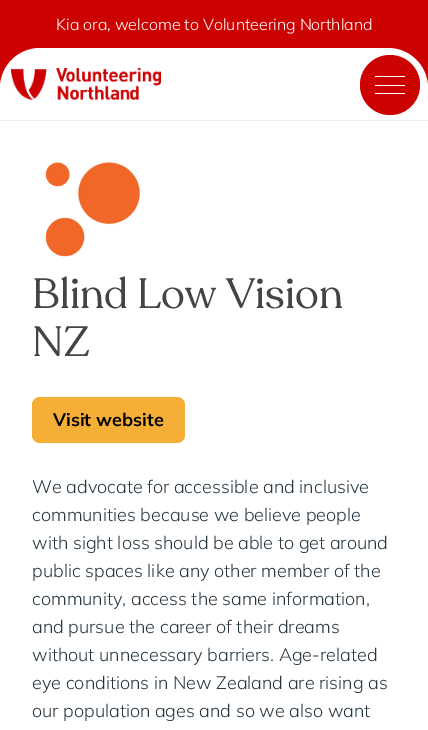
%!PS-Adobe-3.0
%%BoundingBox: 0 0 428 730
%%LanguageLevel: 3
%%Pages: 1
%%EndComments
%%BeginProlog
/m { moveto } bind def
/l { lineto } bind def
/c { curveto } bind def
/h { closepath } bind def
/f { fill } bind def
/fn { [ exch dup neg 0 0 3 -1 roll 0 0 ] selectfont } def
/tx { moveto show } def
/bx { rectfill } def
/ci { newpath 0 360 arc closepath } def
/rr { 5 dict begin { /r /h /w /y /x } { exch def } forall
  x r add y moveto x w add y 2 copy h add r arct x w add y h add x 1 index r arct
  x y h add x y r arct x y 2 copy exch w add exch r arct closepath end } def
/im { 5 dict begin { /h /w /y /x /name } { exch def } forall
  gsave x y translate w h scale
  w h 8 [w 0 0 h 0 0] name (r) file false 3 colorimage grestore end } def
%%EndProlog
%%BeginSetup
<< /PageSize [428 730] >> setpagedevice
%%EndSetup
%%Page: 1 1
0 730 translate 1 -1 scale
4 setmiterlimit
1 setgray
0 0 428 730 bx
0.8 0.008 0 setrgbcolor
0 0 428 88 bx
0.933 setgray
0 120 428 1 bx
/Mulish-ExtraLight 16 fn
1 setgray
(Kia ora, welcome to Volunteering Northland) 56 30 tx
40 48 m 388 48 l 410 48 428 66 428 88 c 428 120 l 0 120 l 0 88 l 0 66 18 48 40 48 c h f
(image0.raw) 11 68 150 32 im
0.8 0.008 0 setrgbcolor
390 85 30 ci f
1 setgray
375 76 30 1 bx
375 85 30 1 bx
375 93 30 1 bx
(image1.raw) 45 162 95 95 im
/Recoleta-Regular 42 fn
0.267 setgray
(Blind Low Vision) 32 308 tx
(NZ) 32 356 tx
0.961 0.686 0.216 setrgbcolor
32 397 153 46 8 rr f
/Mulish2-ExtraLight 18 fn
0 setgray
(Visit website) 53 426 tx
/Mulish-ExtraLight 18 fn
0.157 0.216 0.247 setrgbcolor
(We advocate for accessible and inclusive) 32 493 tx
(communities because we believe people) 32 521 tx
(with sight loss should be able to get around) 32 549 tx
(public spaces like any other member of the) 32 577 tx
(community, access the same information,) 32 605 tx
(and pursue the career of their dreams) 32 633 tx
(without unnecessary barriers. Age-related) 32 661 tx
(eye conditions in New Zealand are rising as) 32 689 tx
(our population ages and so we also want) 32 717 tx
showpage
%%EOF
